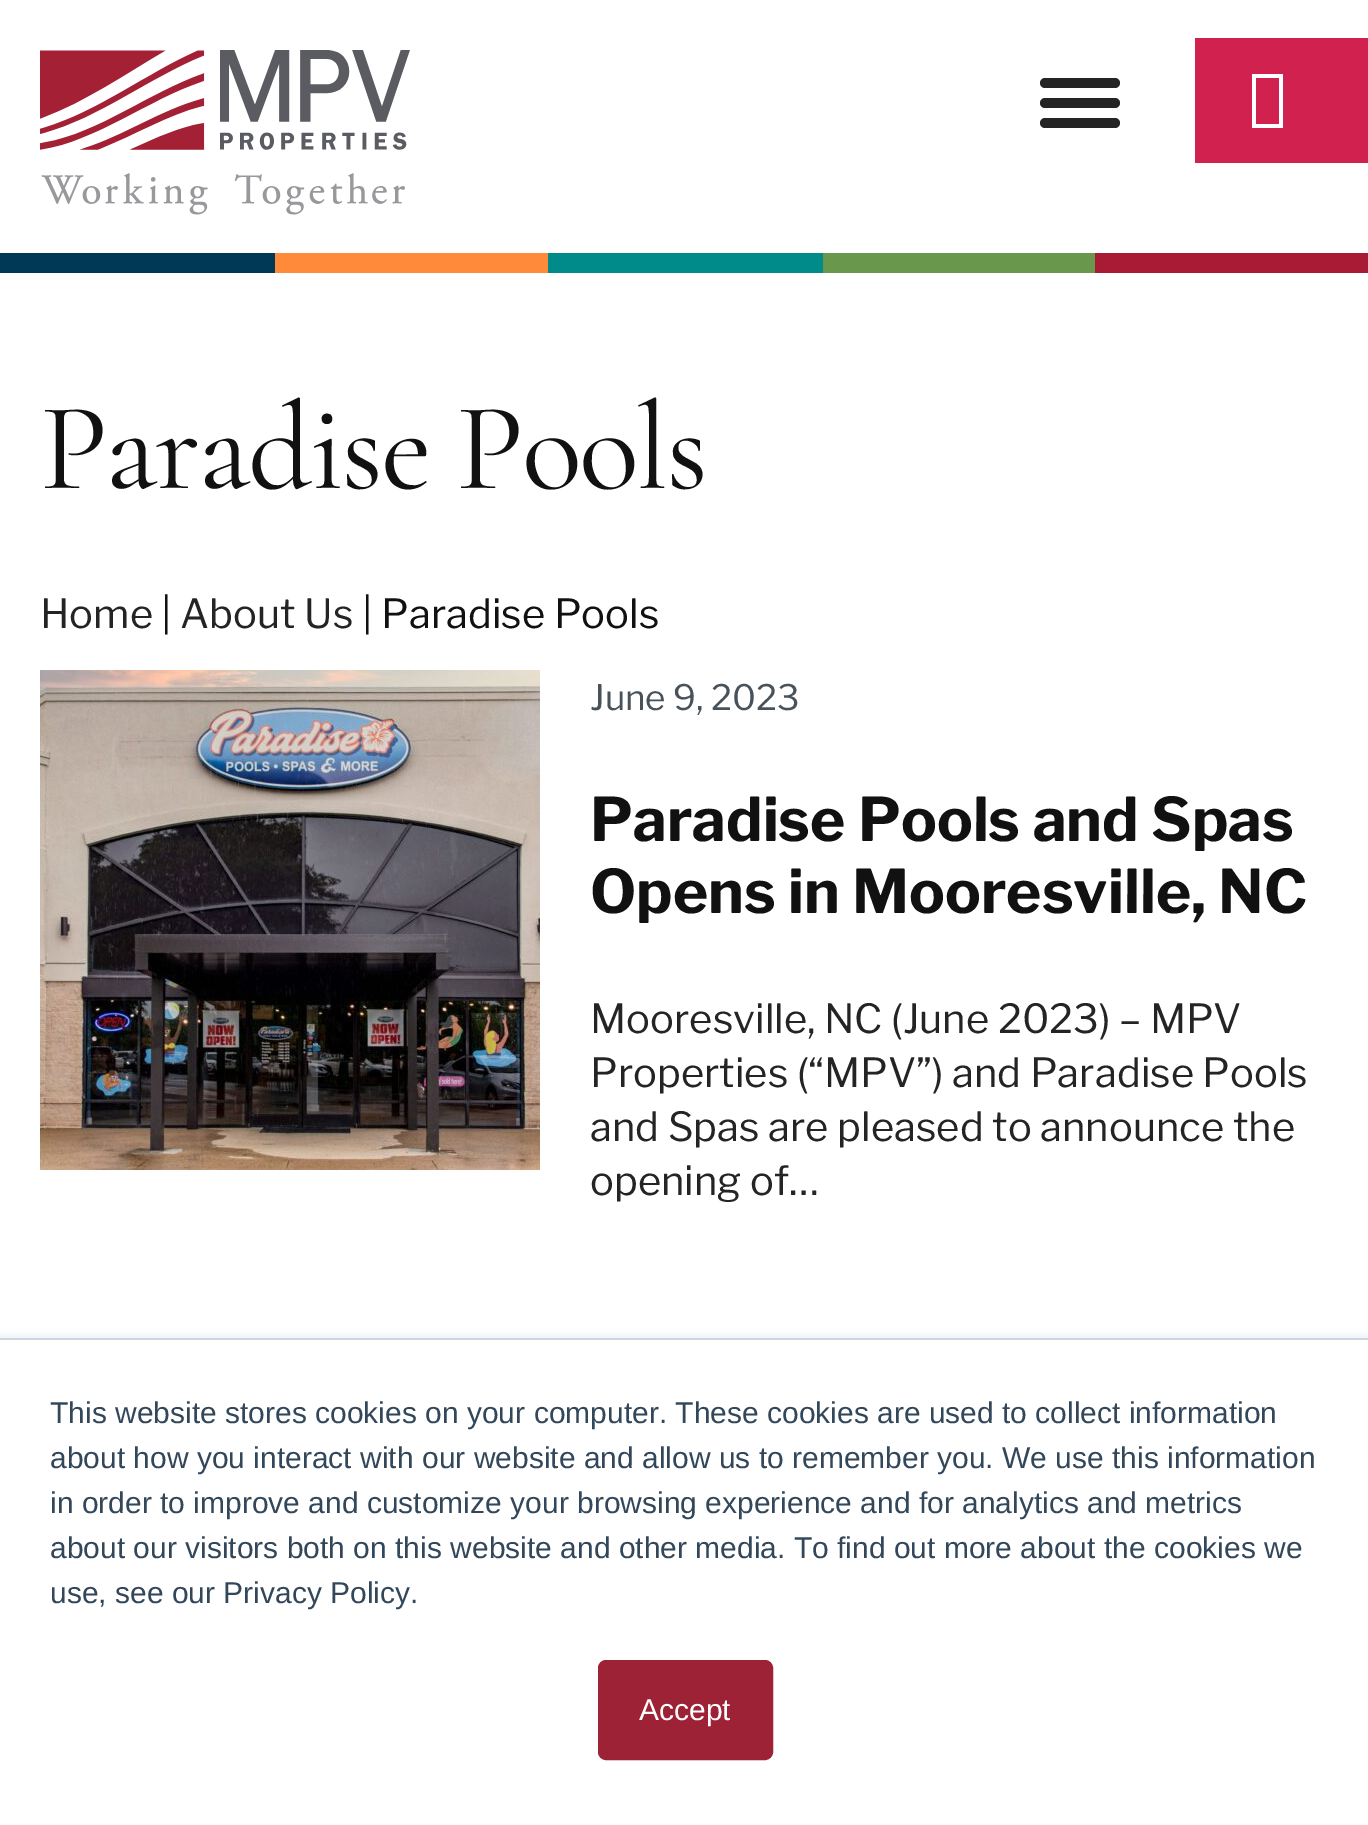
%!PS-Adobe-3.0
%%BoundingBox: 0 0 1368 1825
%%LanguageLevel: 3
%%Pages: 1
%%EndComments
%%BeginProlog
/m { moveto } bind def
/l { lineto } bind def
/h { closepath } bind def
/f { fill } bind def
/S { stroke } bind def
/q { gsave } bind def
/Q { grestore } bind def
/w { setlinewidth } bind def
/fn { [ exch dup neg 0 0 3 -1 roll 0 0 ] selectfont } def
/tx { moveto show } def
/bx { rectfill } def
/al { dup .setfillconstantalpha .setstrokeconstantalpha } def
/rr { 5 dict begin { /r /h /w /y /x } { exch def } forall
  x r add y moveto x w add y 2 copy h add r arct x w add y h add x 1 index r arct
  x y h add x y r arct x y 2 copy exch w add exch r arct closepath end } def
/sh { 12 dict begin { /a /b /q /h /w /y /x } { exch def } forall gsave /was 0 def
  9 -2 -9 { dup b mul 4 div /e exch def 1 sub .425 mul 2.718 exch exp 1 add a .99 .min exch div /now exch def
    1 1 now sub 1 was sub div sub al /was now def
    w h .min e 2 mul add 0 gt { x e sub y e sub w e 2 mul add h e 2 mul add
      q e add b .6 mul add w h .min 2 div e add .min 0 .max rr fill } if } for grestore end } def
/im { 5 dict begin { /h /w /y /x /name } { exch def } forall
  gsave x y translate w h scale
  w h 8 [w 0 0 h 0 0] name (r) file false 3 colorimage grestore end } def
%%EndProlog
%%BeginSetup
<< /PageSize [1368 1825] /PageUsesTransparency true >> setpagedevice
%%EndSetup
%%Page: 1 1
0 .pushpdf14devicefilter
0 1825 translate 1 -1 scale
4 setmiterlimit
1 setgray
0 0 1368 1825 bx
(image0.raw) 40 50 370 165 im
0.141 setgray
1040 78 80 10 5 rr f
1040 98 80 10 5 rr f
1040 118 80 10 5 rr f
0.82 0.129 0.306 setrgbcolor
1195 38 173 125 bx
1 setgray
1252 128 m 1252 74 l 1283 74 l 1283 128 l h 1256 124 m 1279 124 l 1279 78 l 1256 78 l h f
0 0.224 0.333 setrgbcolor
0 253 275 20 bx
1 0.545 0.227 setrgbcolor
275 253 273 20 bx
0 0.545 0.545 setrgbcolor
548 253 275 20 bx
0.412 0.596 0.298 setrgbcolor
823 253 272 20 bx
0.663 0.102 0.204 setrgbcolor
1095 253 273 20 bx
/CormorantGaramond-Regular 125 fn
0.067 setgray
40 488 m -2.5 0 (Paradise Pools) ashow
/LibreFranklin-Regular 40 fn
0.141 setgray
(Home) 40 628 tx
0.067 setgray
(|) 161 628 tx
0.141 setgray
(About Us) 180 628 tx
0.067 setgray
(| Paradise Pools) 362 628 tx
(image1.raw) 40 670 500 500 im
/LibreFranklin-Regular 35 fn
0.282 0.322 0.353 setrgbcolor
(June 9, 2023) 590 710 tx
/LibreFranklin-Bold 60 fn
0.067 setgray
(Paradise Pools and Spas) 590 841 tx
(Opens in Mooresville, NC) 590 913 tx
/LibreFranklin-Regular 40 fn
0.141 setgray
(Mooresville, NC \(June 2023\) – MPV) 590 1033 tx
(Properties \(“MPV”\) and Paradise Pools) 590 1087 tx
(and Spas are pleased to announce the) 590 1141 tx
(opening of…) 590 1195 tx
0.918 0.941 0.965 setrgbcolor
0 1335 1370 488 0 4 1 sh
0.796 0.839 0.886 setrgbcolor
0 1338 1368 2 bx
1 setgray
0 1340 1368 485 bx
/LiberationSans-Regular 30 fn
0.2 0.278 0.357 setrgbcolor
(This website stores cookies on your computer. These cookies are used to collect information) 50 1423 tx
(about how you interact with our website and allow us to remember you. We use this information) 50 1468 tx
(in order to improve and customize your browsing experience and for analytics and metrics) 50 1513 tx
(about our visitors both on this website and other media. To find out more about the cookies we) 50 1558 tx
(use, see our Privacy Policy.) 50 1603 tx
0.616 0.133 0.208 setrgbcolor
599.5 1661.5 172 97 6.5 rr q f Q
3 w
S
1 setgray
(Accept) 639 1720 tx
.poppdf14devicefilter showpage
%%EOF
